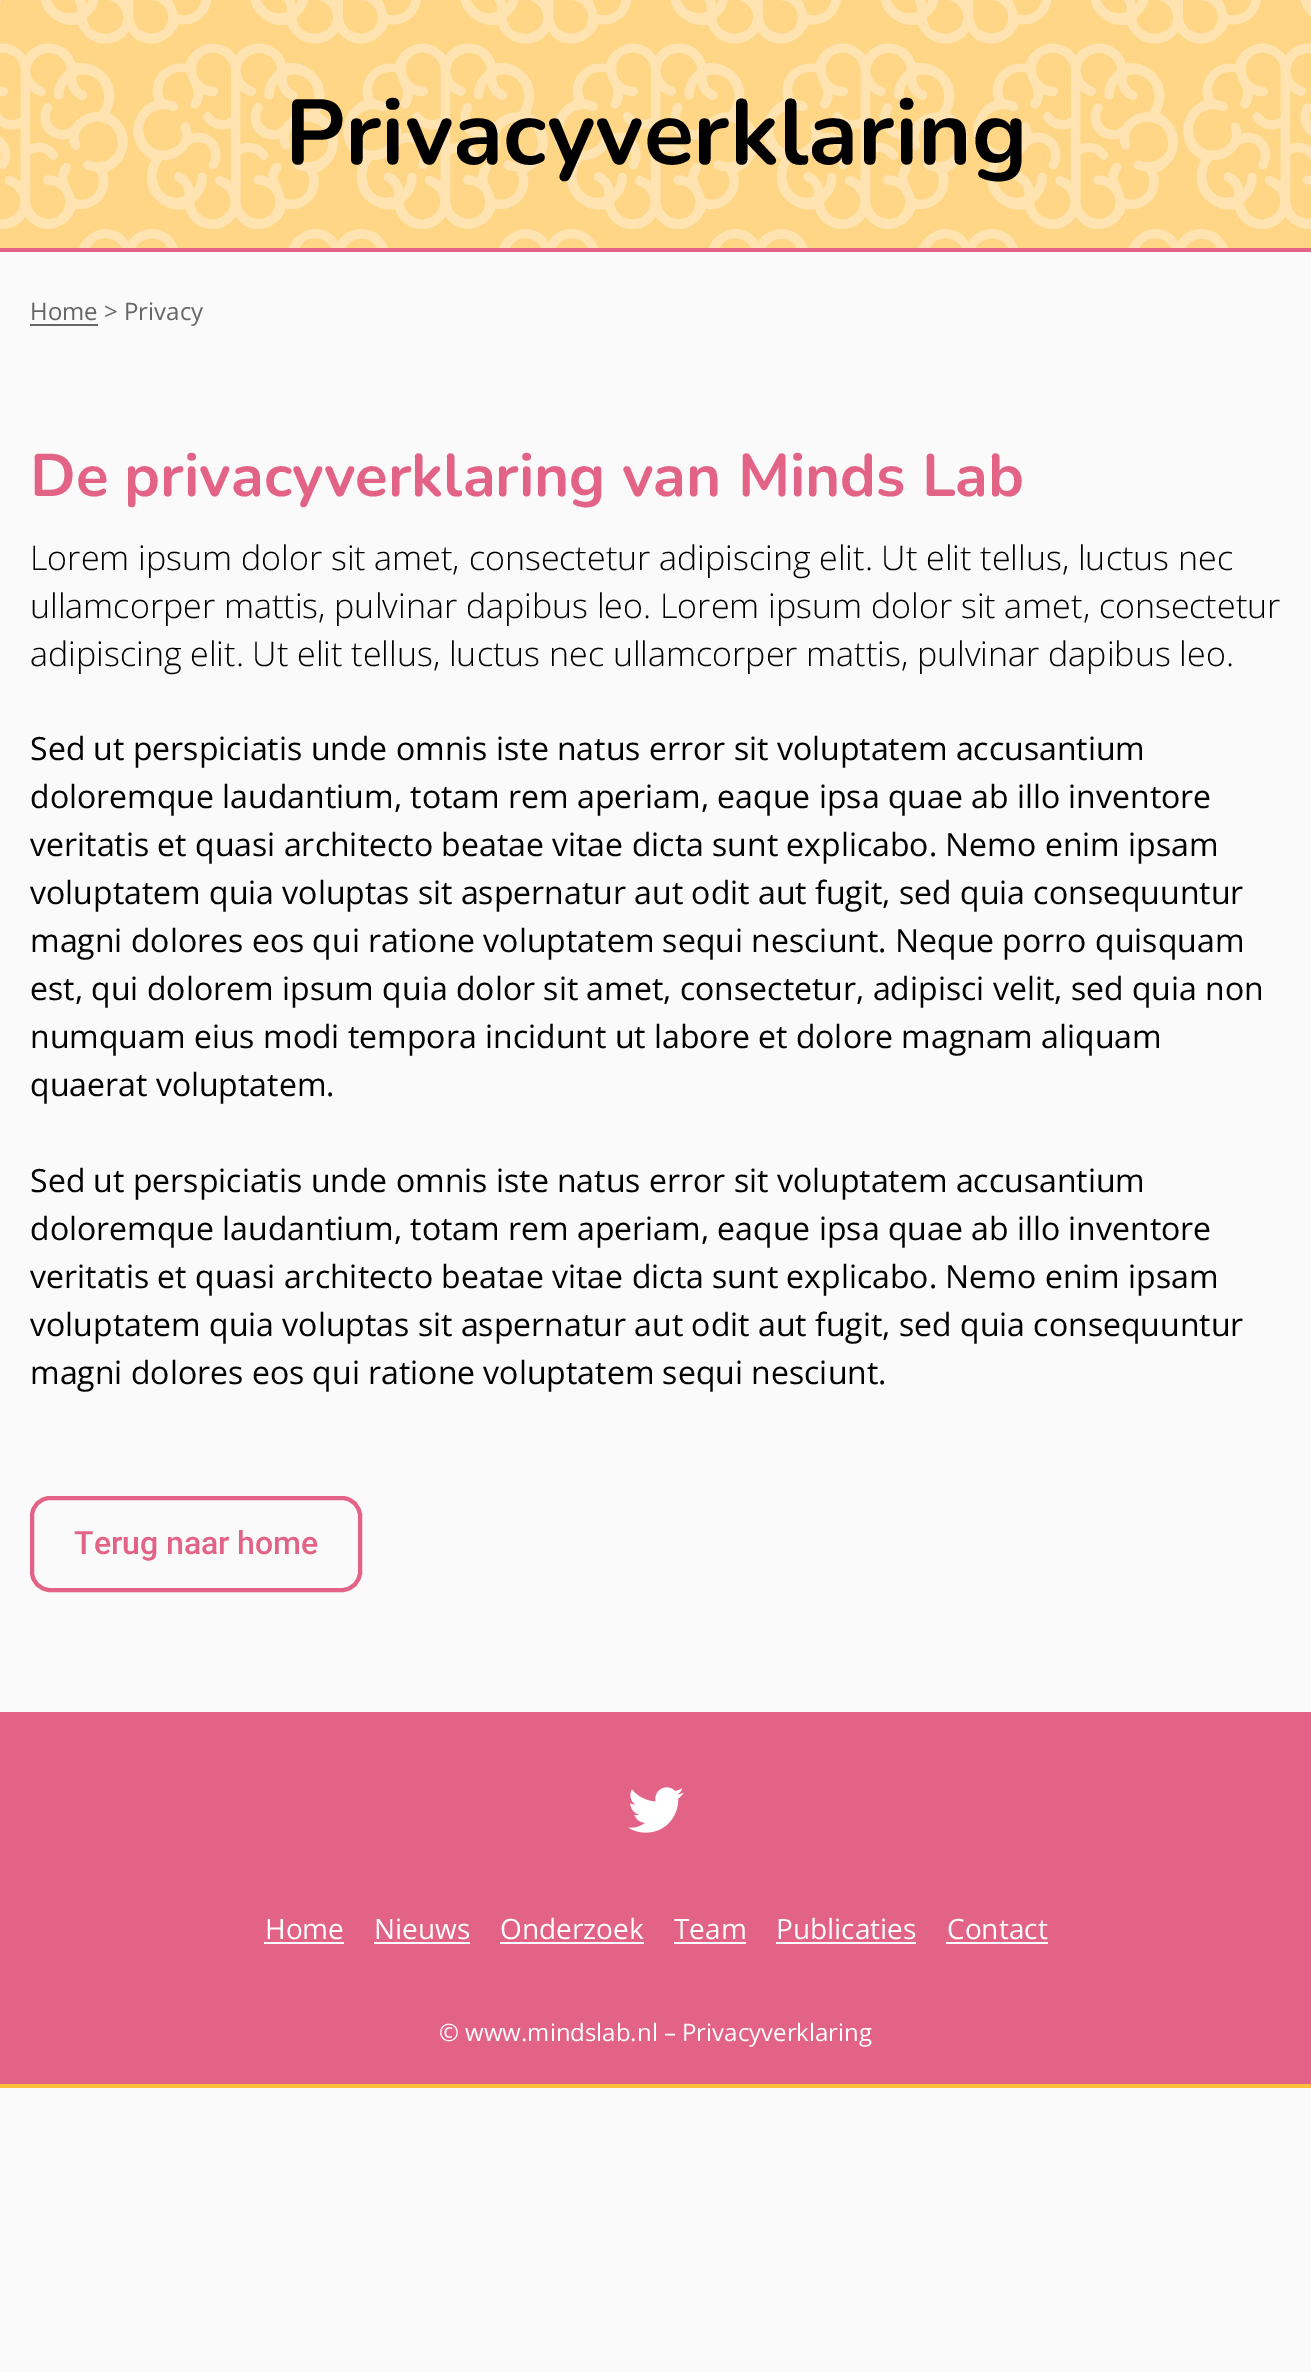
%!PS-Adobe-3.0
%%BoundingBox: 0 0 1311 2372
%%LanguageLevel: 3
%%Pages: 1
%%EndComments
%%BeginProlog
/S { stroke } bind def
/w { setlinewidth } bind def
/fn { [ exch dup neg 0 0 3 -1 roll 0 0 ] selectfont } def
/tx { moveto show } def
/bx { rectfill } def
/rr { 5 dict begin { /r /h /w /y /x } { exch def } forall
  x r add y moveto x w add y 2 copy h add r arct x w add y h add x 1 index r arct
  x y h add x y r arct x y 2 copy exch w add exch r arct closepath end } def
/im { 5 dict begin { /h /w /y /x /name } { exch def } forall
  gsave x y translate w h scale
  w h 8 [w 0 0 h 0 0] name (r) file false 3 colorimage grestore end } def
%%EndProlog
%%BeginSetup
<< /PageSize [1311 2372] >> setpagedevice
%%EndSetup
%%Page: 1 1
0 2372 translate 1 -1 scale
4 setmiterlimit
0.98 setgray
0 0 1311 2372 bx
(image0.raw) 0 0 1311 248 im
0.886 0.388 0.525 setrgbcolor
0 248 1311 4 bx
/Nunito-Bold 92 fn
0 setgray
(Privacyverklaring) 285 164 tx
0.4 setgray
30 324 68 2 bx
/OpenSans-Regular 24 fn
(Home > Privacy) 30 320 tx
/Nunito-Bold 60 fn
0.886 0.388 0.525 setrgbcolor
(De privacyverklaring van Minds Lab) 30 496 tx
/OpenSans-Light 34 fn
0 setgray
(Lorem ipsum dolor sit amet, consectetur adipiscing elit. Ut elit tellus, luctus nec) 30 570 tx
(ullamcorper mattis, pulvinar dapibus leo. Lorem ipsum dolor sit amet, consectetur) 30 618 tx
(adipiscing elit. Ut elit tellus, luctus nec ullamcorper mattis, pulvinar dapibus leo.) 30 666 tx
/OpenSans-Regular 32 fn
(Sed ut perspiciatis unde omnis iste natus error sit voluptatem accusantium) 30 760 tx
(doloremque laudantium, totam rem aperiam, eaque ipsa quae ab illo inventore) 30 808 tx
(veritatis et quasi architecto beatae vitae dicta sunt explicabo. Nemo enim ipsam) 30 856 tx
(voluptatem quia voluptas sit aspernatur aut odit aut fugit, sed quia consequuntur) 30 904 tx
(magni dolores eos qui ratione voluptatem sequi nesciunt. Neque porro quisquam) 30 952 tx
(est, qui dolorem ipsum quia dolor sit amet, consectetur, adipisci velit, sed quia non) 30 1000 tx
(numquam eius modi tempora incidunt ut labore et dolore magnam aliquam) 30 1048 tx
(quaerat voluptatem.) 30 1096 tx
(Sed ut perspiciatis unde omnis iste natus error sit voluptatem accusantium) 30 1192 tx
(doloremque laudantium, totam rem aperiam, eaque ipsa quae ab illo inventore) 30 1240 tx
(veritatis et quasi architecto beatae vitae dicta sunt explicabo. Nemo enim ipsam) 30 1288 tx
(voluptatem quia voluptas sit aspernatur aut odit aut fugit, sed quia consequuntur) 30 1336 tx
(magni dolores eos qui ratione voluptatem sequi nesciunt.) 30 1384 tx
0.886 0.388 0.525 setrgbcolor
4 w
32 1498 328 92 18 rr S
/Roboto-Medium 32 fn
(Terug naar home) 74 1554 tx
0 1712 1311 372 bx
(image1.raw) 628 1787 56 46 im
/OpenSans-Regular 28 fn
1 setgray
(Home) 265 1939 tx
264 1942 80 2 bx
(Nieuws) 374 1939 tx
374 1942 96 2 bx
(Onderzoek) 500 1939 tx
500 1942 144 2 bx
(Team) 674 1939 tx
674 1942 72 2 bx
(Publicaties) 776 1939 tx
776 1942 140 2 bx
(Contact) 947 1939 tx
946 1942 102 2 bx
0.996 0.741 0.239 setrgbcolor
0 2084 1311 4 bx
/OpenSans-Regular 24 fn
1 setgray
(© www.mindslab.nl – Privacyverklaring) 439 2041 tx
showpage
%%EOF
